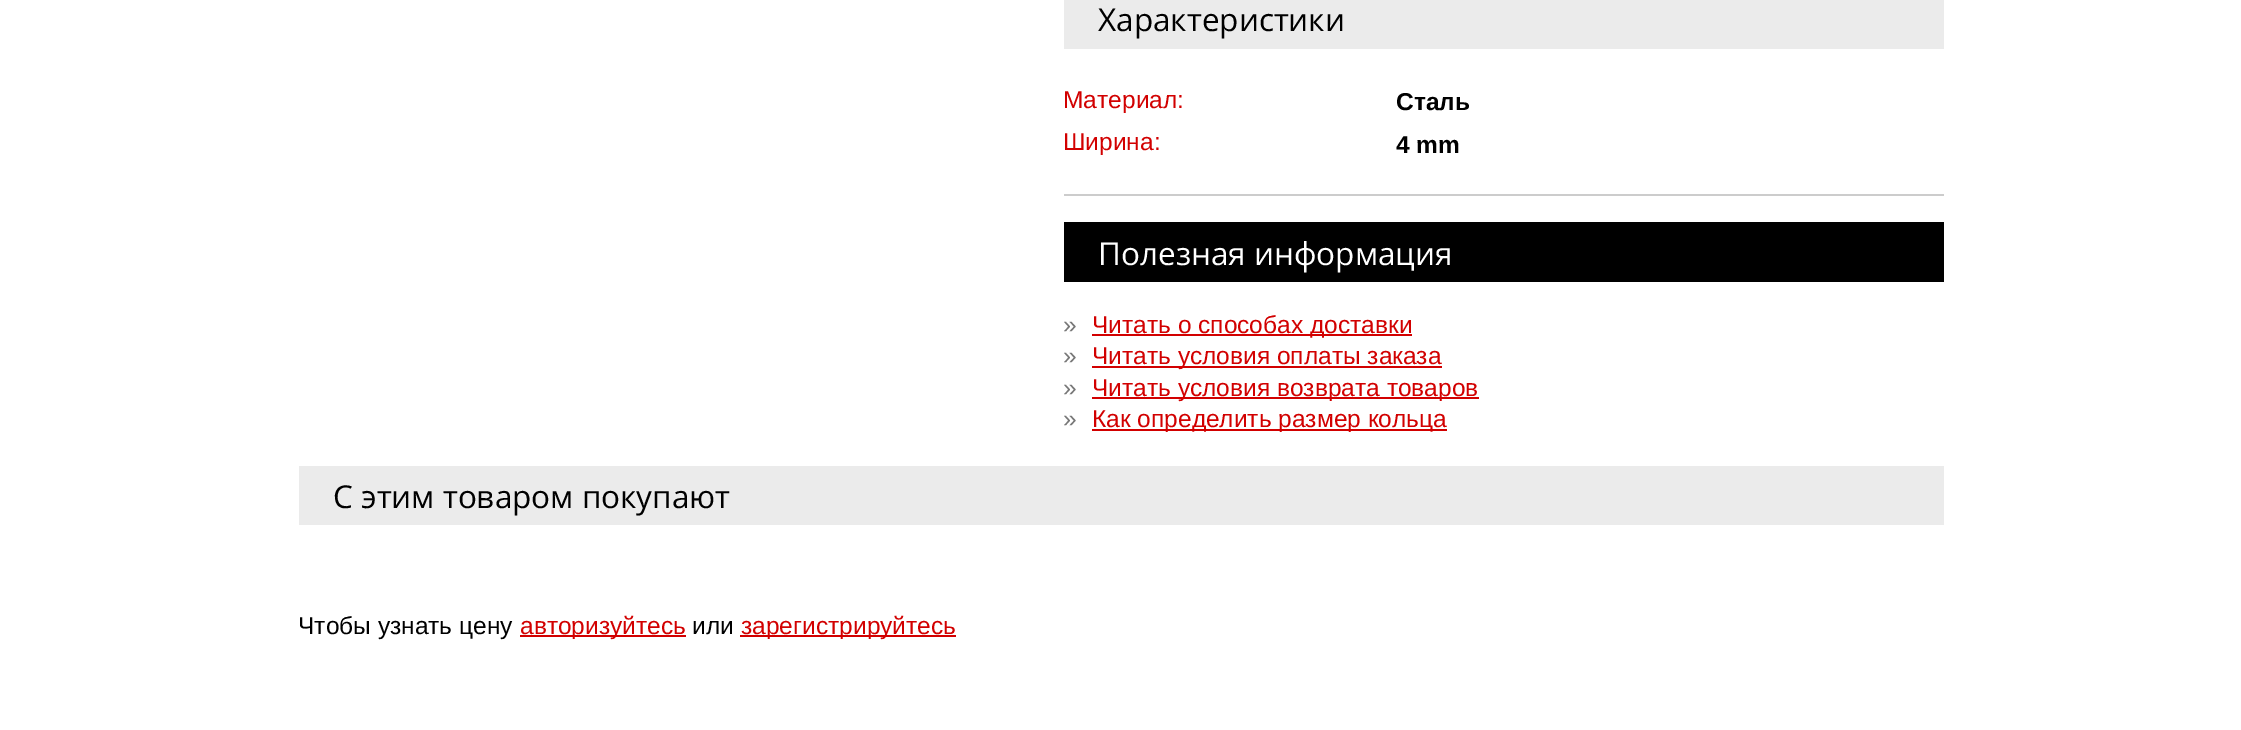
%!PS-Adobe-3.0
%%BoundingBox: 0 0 2241 730
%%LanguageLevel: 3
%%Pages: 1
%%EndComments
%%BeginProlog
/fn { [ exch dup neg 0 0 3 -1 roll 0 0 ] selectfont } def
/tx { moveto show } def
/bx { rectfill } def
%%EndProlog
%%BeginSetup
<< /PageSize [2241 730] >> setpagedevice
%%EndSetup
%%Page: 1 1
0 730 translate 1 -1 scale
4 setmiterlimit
1 setgray
0 0 2241 730 bx
0.922 setgray
1064 0 880 49 bx
/OpenSans-Regular 31.5 fn
0 setgray
(Характеристики) 1098 31 tx
0.8 setgray
1064 194 880 2 bx
/LiberationSans-Regular 24.5 fn
0.824 0 0 setrgbcolor
(Материал:) 1063 108 tx
/LiberationSans-Bold 24.5 fn
0 setgray
(Сталь) 1396 110 tx
/LiberationSans-Regular 24.5 fn
0.824 0 0 setrgbcolor
(Ширина:) 1063 150 tx
/LiberationSans-Bold 24.5 fn
0 setgray
(4 mm) 1396 153 tx
1064 222 880 60 bx
/OpenSans-Regular 31.5 fn
1 setgray
(Полезная информация) 1098 265 tx
/LiberationSans-Regular 24.5 fn
0.467 setgray
(») 1063 333 tx
0.824 0 0 setrgbcolor
1092 334 320 2 bx
(Читать о способах доставки) 1092 333 tx
0.467 setgray
(») 1063 364 tx
0.824 0 0 setrgbcolor
1092 366 350 2 bx
(Читать условия оплаты заказа) 1092 364 tx
0.467 setgray
(») 1063 396 tx
0.824 0 0 setrgbcolor
1092 397 387 2 bx
(Читать условия возврата товаров) 1092 396 tx
0.467 setgray
(») 1063 427 tx
0.824 0 0 setrgbcolor
1092 429 355 2 bx
(Как определить размер кольца) 1092 427 tx
0.922 setgray
299 466 1645 59 bx
/OpenSans-Regular 31.5 fn
0 setgray
(С этим товаром покупают) 333 508 tx
/LiberationSans-Regular 24.5 fn
(Чтобы узнать цену) 298 634 tx
0.824 0 0 setrgbcolor
520 635 166 2 bx
(авторизуйтесь) 520 634 tx
0 setgray
(или) 692 634 tx
0.824 0 0 setrgbcolor
740 635 216 2 bx
(зарегистрируйтесь) 741 634 tx
showpage
%%EOF
